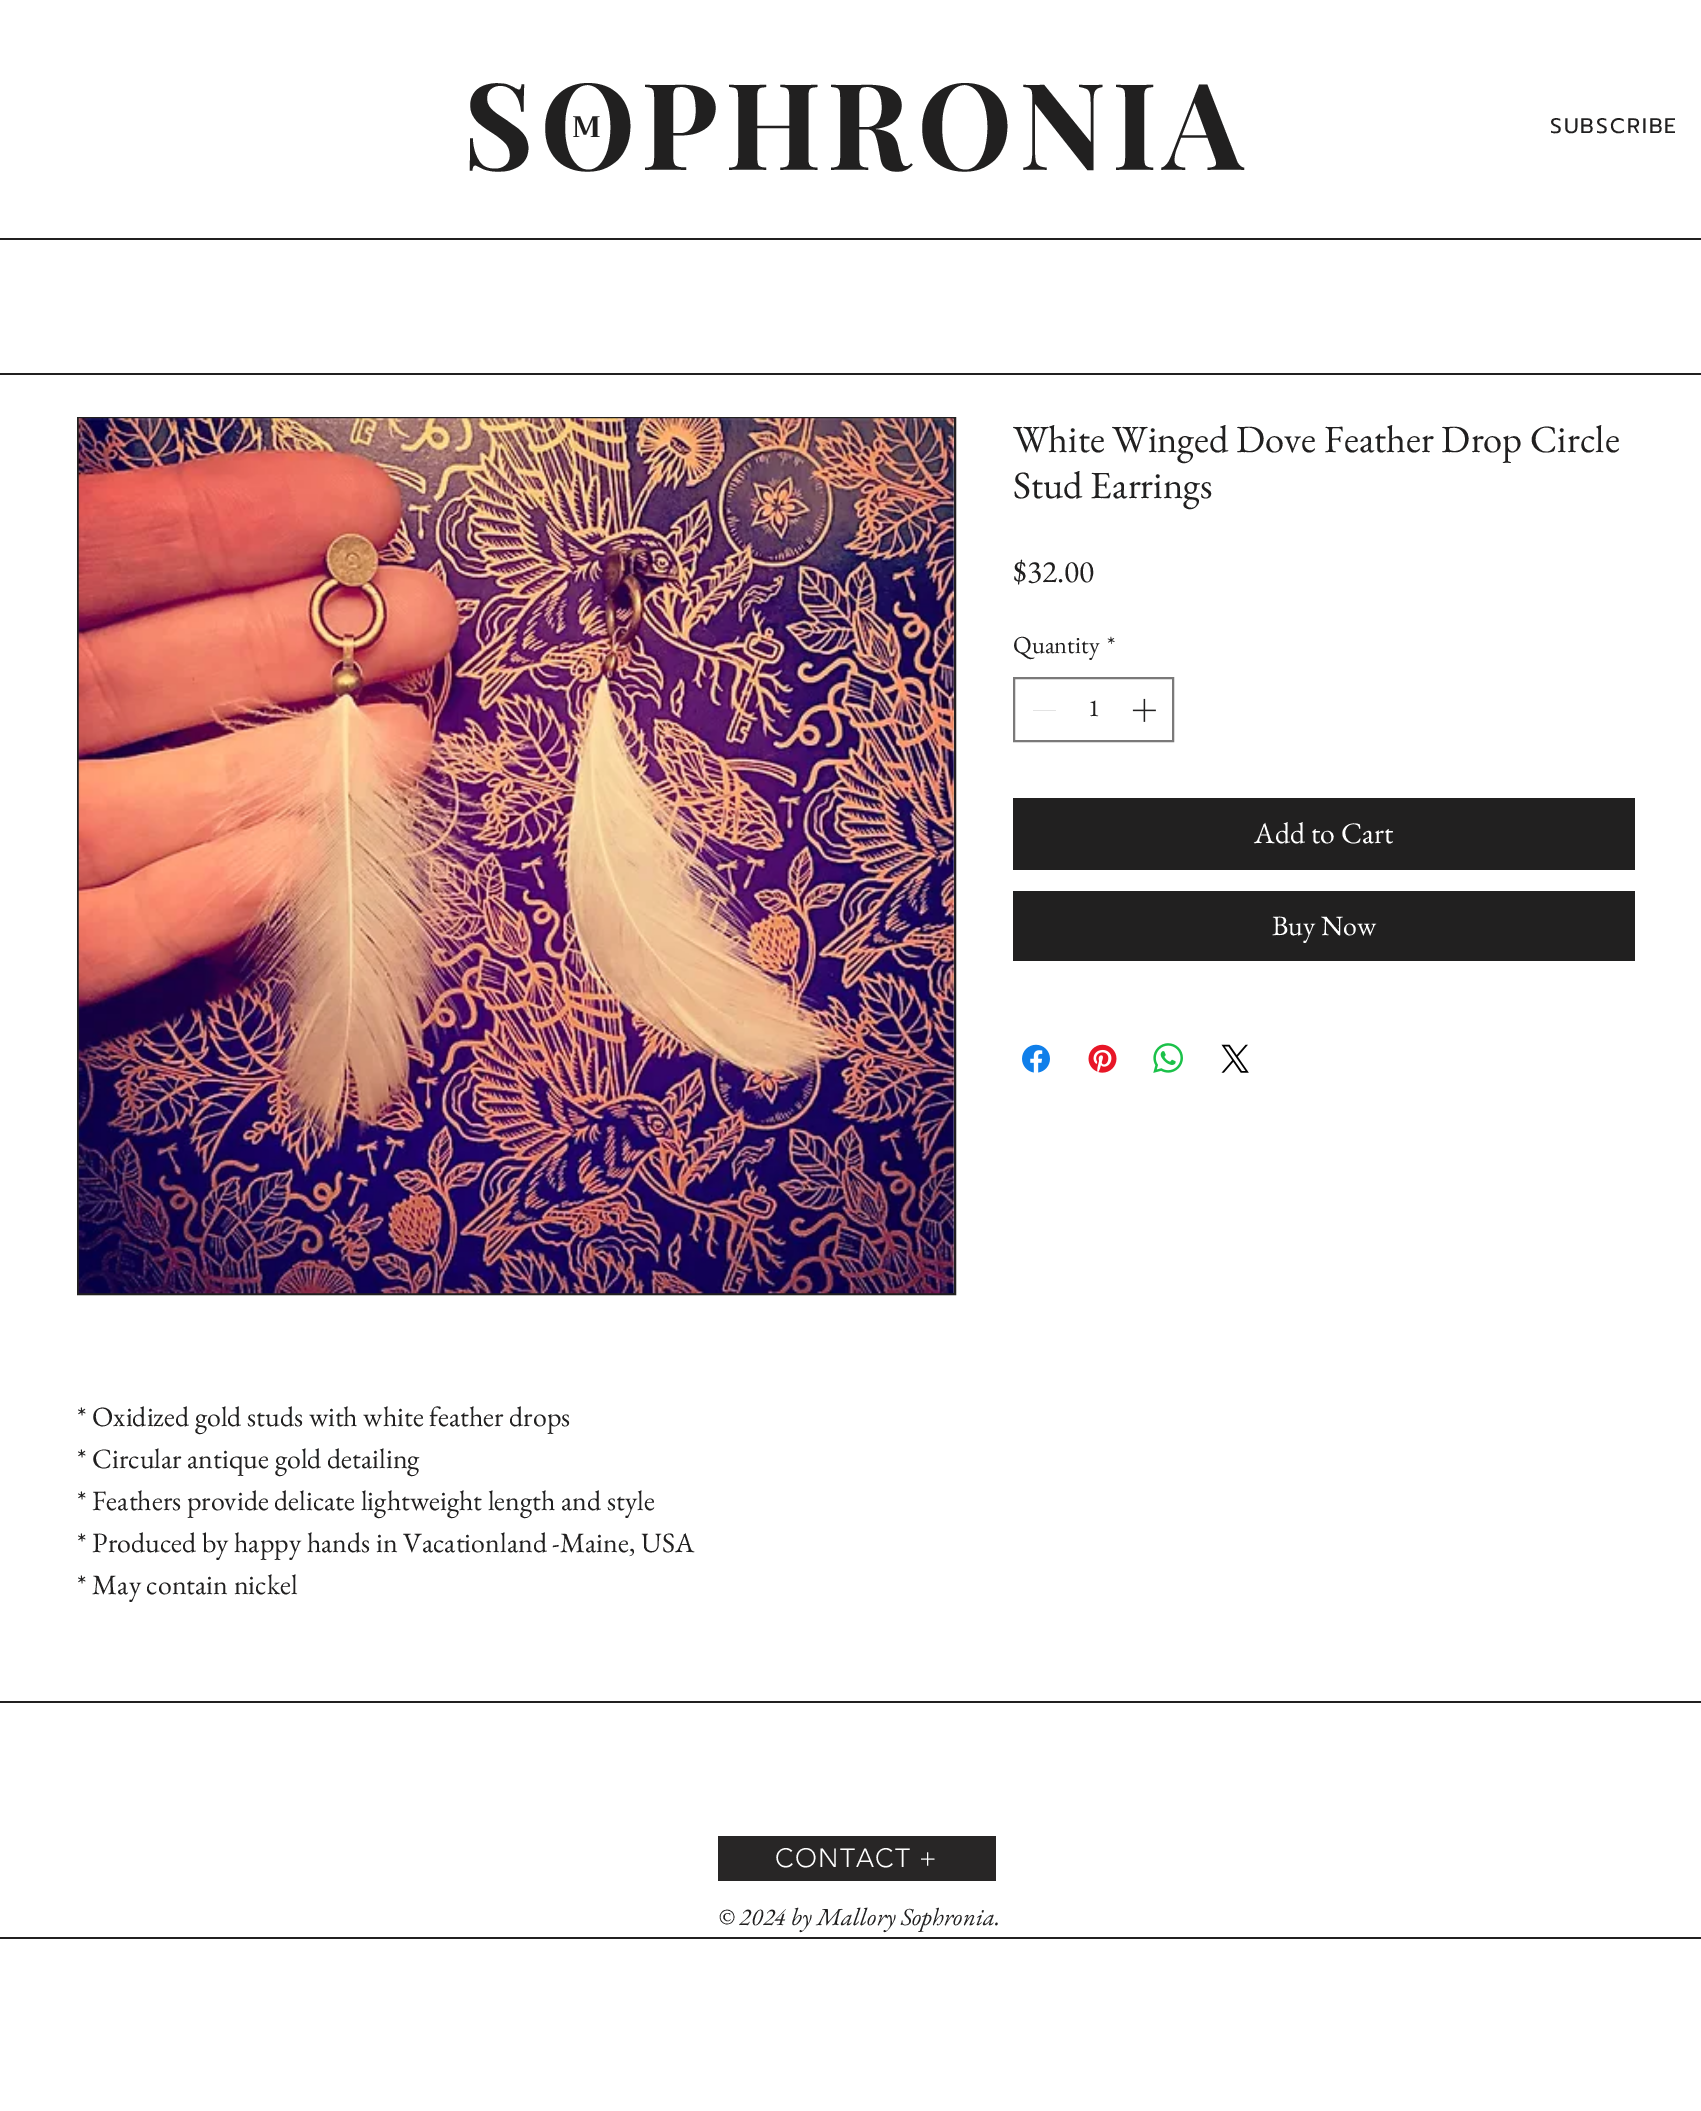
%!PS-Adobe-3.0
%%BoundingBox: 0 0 1701 2111
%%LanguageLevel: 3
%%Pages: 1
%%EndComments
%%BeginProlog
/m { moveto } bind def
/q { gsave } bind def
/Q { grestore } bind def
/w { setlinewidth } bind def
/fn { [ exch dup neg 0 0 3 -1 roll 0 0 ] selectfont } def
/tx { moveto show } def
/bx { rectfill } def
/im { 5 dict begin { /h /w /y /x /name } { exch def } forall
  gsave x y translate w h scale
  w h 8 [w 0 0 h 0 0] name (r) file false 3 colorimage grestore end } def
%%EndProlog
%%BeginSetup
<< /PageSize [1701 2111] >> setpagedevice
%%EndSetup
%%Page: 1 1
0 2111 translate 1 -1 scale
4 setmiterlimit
1 setgray
0 0 1701 2111 bx
/PlayfairDisplay-Bold 120.75 fn
0.129 0.125 0.125 setrgbcolor
463 170 m 6 0 (SOPHRONIA) ashow
/Trirong-Bold 29.75 fn
572 137 m 2 0 (M) ashow
q
1551 110 127 32 rectclip
/Prompt-Regular 21 fn
1550 133 m 2 0 (SUBSCRIBE) ashow
Q
0 238 1701 2 bx
0 373 1701 2 bx
/EBGaramond-Regular 38.5 fn
(White Winged Dove Feather Drop Circle) 1013 452 tx
(Stud Earrings) 1013 498 tx
/EBGaramond-Regular 31.5 fn
($32.00) 1013 582 tx
/EBGaramond-Regular 24.5 fn
(Quantity) 1013 653 tx
(*) 1107 653 tx
0.478 0.475 0.475 setrgbcolor
2 w
1014 678 159 63 rectstroke
0.89 setgray
1033 710 23 1 bx
0.129 0.125 0.125 setrgbcolor
(1) 1088 716 tx
(image0.raw) 1132 698 24 24 im
1013 798 622 72 bx
/EBGaramond-Regular 29.75 fn
1 setgray
(Add to Cart) 1254 843 tx
0.129 0.125 0.125 setrgbcolor
1013 891 622 70 bx
/EBGaramond-Regular 28 fn
1 setgray
(Buy Now) 1272 935 tx
(image1.raw) 1022 1044 28 29 im
(image2.raw) 1088 1044 29 29 im
(image3.raw) 1153 1043 30 30 im
(image4.raw) 1221 1044 28 29 im
0.129 0.125 0.125 setrgbcolor
78 418 877 876 rectstroke
(image5.raw) 78 418 876 876 im
(* Oxidized gold studs with white feather drops) 77 1426 tx
(* Circular antique gold detailing) 77 1468 tx
(* Feathers provide delicate lightweight length and style) 77 1510 tx
(* Produced by happy hands in Vacationland -Maine, USA) 77 1552 tx
(* May contain nickel) 77 1594 tx
0 1701 1701 2 bx
0 1937 1701 2 bx
0.157 0.149 0.149 setrgbcolor
718 1836 278 45 bx
/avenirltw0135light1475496-Light 26.25 fn
1 setgray
775 1867 m 1.25 0 (CONTACT +) ashow
/EBGaramond-Italic 24.5 fn
0.129 0.125 0.125 setrgbcolor
(© 2024 by Mallory Sophronia.) 718 1925 tx
showpage
%%EOF
